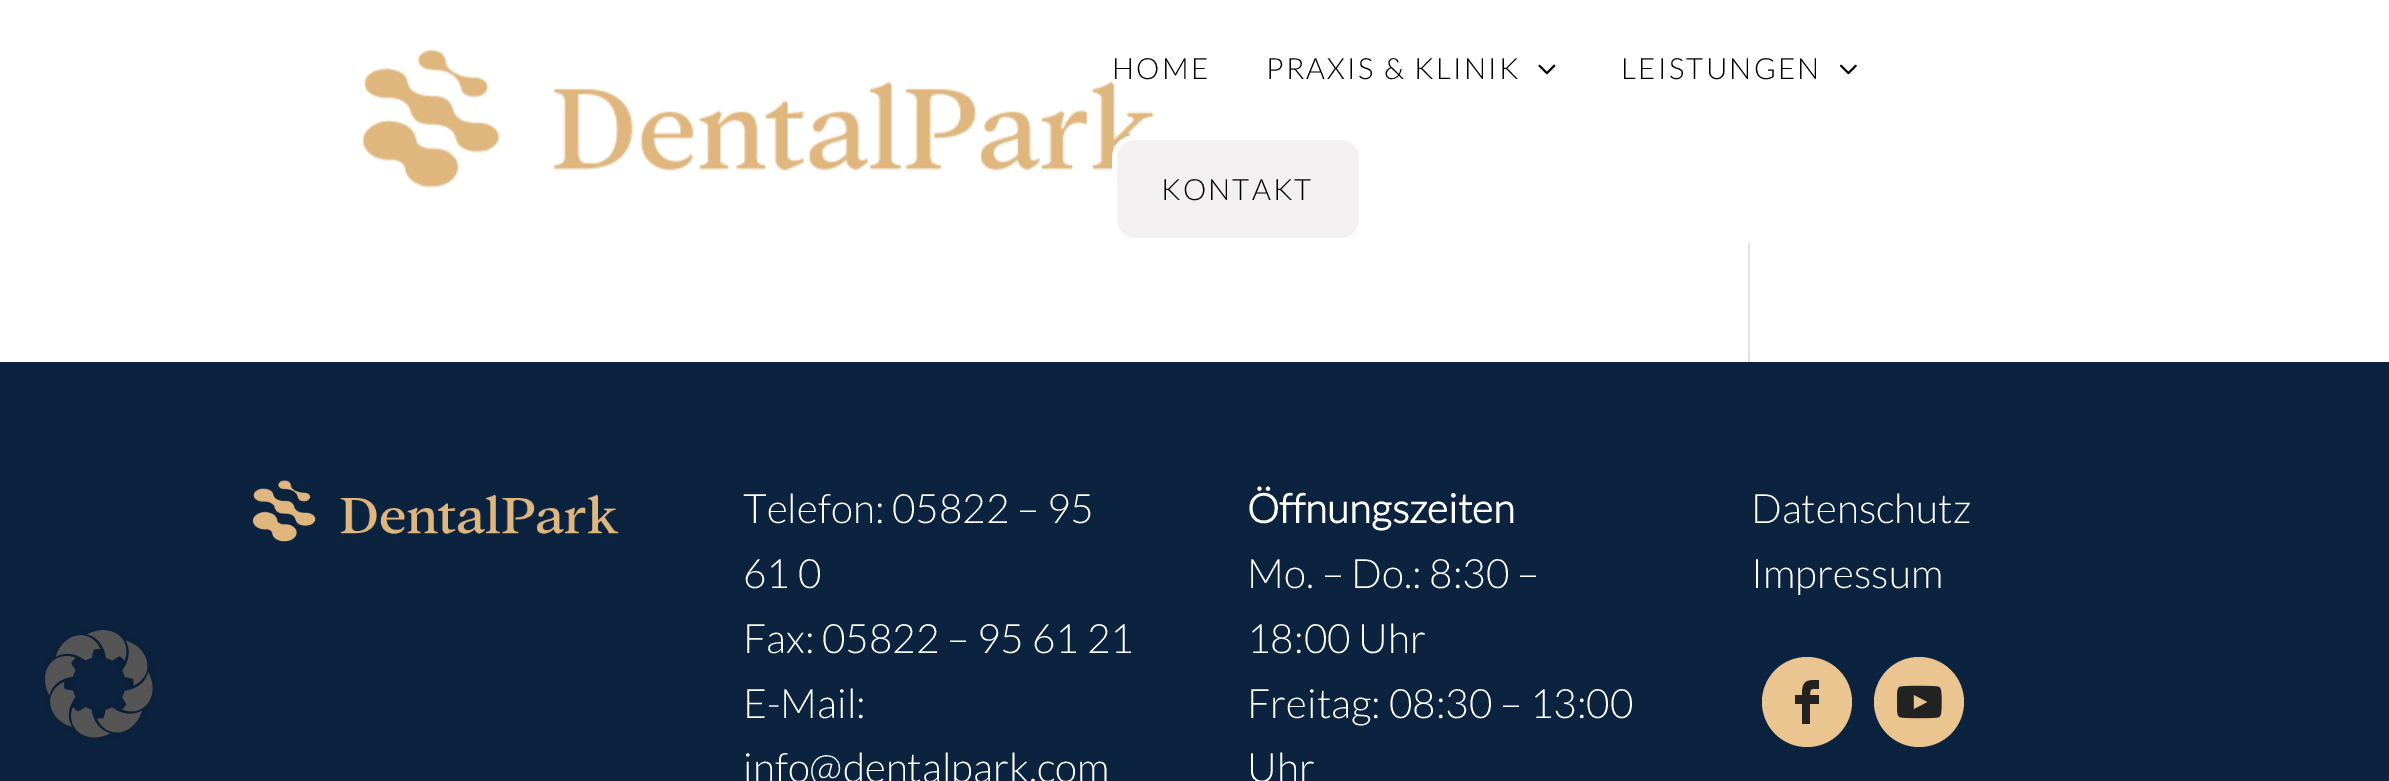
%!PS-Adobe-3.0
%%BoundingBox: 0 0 2389 781
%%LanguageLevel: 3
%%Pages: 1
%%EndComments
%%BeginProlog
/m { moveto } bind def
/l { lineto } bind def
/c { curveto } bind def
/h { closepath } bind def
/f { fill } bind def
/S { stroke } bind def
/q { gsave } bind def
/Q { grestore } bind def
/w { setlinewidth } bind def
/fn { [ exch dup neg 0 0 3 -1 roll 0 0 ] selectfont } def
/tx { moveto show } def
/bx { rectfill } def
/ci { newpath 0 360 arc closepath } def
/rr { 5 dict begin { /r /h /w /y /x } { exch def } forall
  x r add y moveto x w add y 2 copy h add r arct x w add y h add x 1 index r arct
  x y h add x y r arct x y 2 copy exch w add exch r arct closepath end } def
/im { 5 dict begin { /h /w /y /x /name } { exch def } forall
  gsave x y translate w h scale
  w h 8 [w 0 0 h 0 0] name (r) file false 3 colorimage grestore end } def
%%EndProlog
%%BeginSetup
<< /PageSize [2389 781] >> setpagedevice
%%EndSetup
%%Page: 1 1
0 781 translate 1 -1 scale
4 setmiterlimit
1 setgray
0 0 2389 781 bx
0.047 0.137 0.251 setrgbcolor
0 362 2389 419 bx
(image0.raw) 42 627 113 113 im
(image1.raw) 361 49 794 139 im
/Lato-Light 29.25 fn
0 setgray
1112 79 m 2.25 0 (HOME) ashow
1266 79 m 2.25 0 (PRAXIS & KLINIK) ashow
(image2.raw) 1538 64 18 11 im
1621 79 m 2.25 0 (LEISTUNGEN) ashow
(image3.raw) 1840 64 17 11 im
0.949 0.941 0.941 setrgbcolor
1114.5 137.5 247 103 20.5 rr q f Q
1 setgray
5 w
S
0 setgray
1161 200 m 2.25 0 (KONTAKT) ashow
0.886 setgray
1748 243 2 119 bx
(image4.raw) 252 480 367 62 im
/Lato-Light 40.5 fn
1 setgray
(Telefon: 05822 – 95) 743 523 tx
(61 0) 743 588 tx
(Fax: 05822 – 95 61 21) 743 653 tx
(E-Mail:) 743 718 tx
(info@dentalpark.com) 743 782 tx
/Lato-Bold 40.5 fn
(Öffnungszeiten) 1247 523 tx
/Lato-Light 40.5 fn
(Mo. – Do.: 8:30 –) 1247 588 tx
(18:00 Uhr) 1247 653 tx
(Freitag: 08:30 – 13:00) 1247 718 tx
(Uhr) 1247 782 tx
(Datenschutz) 1751 523 tx
(Impressum) 1751 588 tx
0.922 0.773 0.561 setrgbcolor
1807 702 45 ci f
0.133 setgray
1795 704 m 1795 695 l 1802 695 l 1802 680 1807 680 1819 680 c 1819 689 l 1812 689 1810 687 1810 695 c 1819 695 l 1819 704 l 1810 704 l 1810 724 l 1802 724 l 1802 704 l h f
0.922 0.773 0.561 setrgbcolor
1919 702 45 ci f
(image5.raw) 1897 685 45 34 im
showpage
%%EOF
